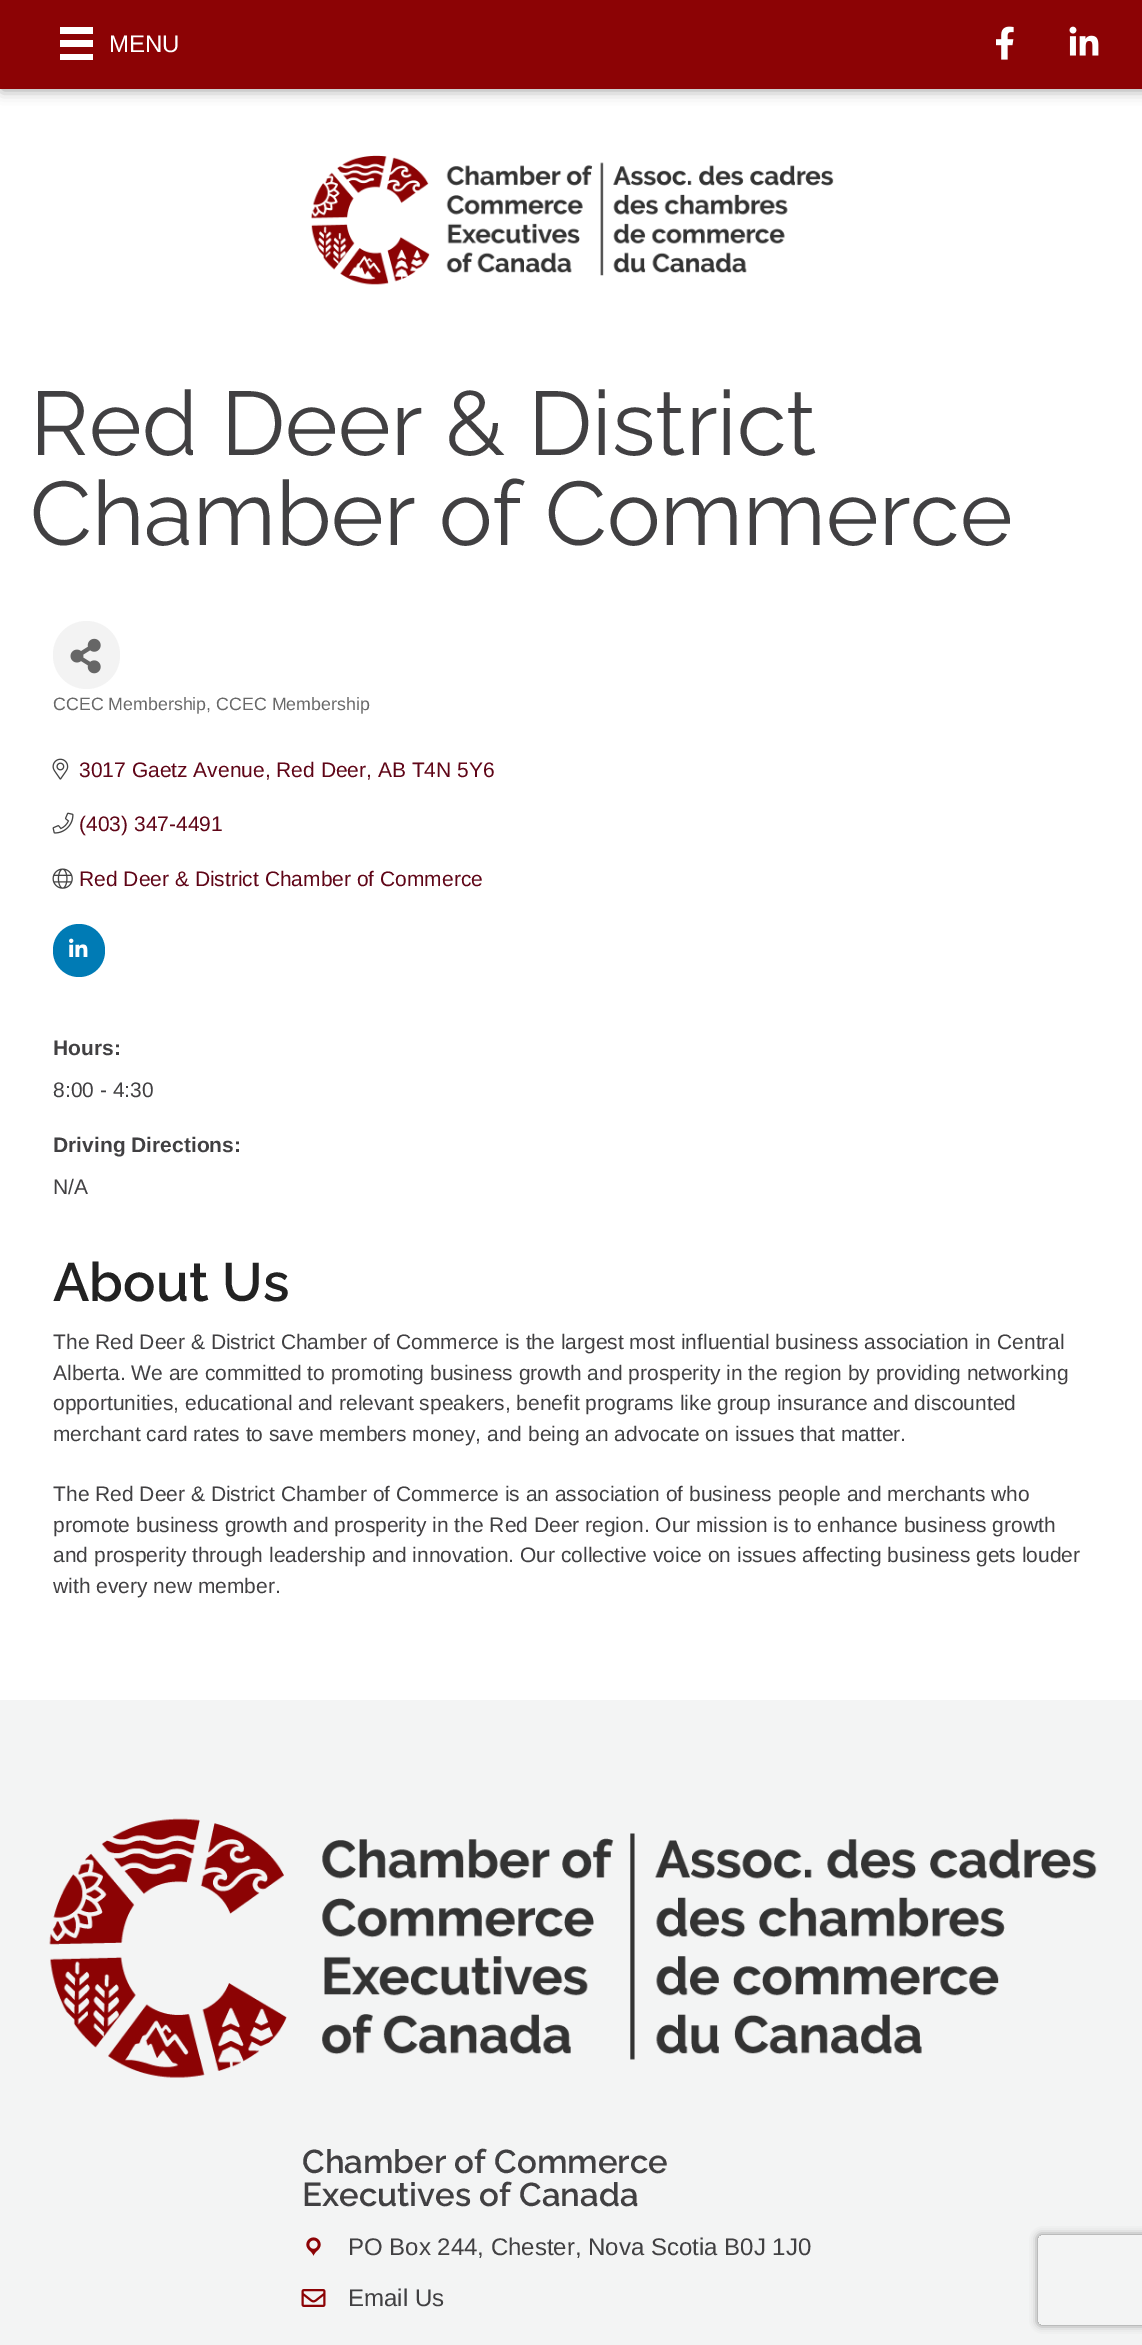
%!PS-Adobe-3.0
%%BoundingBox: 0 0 1142 2345
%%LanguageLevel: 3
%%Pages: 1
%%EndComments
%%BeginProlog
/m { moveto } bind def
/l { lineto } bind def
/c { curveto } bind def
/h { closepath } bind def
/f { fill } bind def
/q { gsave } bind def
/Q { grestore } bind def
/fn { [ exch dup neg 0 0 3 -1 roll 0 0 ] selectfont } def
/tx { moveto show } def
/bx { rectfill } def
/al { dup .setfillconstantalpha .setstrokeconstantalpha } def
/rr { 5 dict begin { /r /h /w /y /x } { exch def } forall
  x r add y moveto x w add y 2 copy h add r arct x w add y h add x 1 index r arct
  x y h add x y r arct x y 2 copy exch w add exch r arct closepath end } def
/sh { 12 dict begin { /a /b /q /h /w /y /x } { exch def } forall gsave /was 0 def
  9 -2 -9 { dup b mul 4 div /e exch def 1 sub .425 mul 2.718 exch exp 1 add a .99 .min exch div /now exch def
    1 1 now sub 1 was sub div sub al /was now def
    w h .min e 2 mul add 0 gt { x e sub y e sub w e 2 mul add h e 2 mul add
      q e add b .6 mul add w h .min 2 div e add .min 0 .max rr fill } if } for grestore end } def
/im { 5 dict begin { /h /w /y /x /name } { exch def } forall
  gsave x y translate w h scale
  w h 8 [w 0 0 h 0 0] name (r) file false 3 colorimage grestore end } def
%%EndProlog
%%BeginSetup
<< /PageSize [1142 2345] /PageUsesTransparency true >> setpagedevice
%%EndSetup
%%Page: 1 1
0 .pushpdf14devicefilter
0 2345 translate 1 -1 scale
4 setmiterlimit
1 setgray
0 0 1142 2345 bx
0.6 setgray
2 2 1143 88 0 7 1 sh
0.549 0.012 0.02 setrgbcolor
0 0 1142 89 bx
1 setgray
60 27 33 7 bx
60 40 33 7 bx
60 54 33 6 bx
/LiberationSans-Regular 24 fn
(MENU) 109 52 tx
(image0.raw) 996 26 18 34 im
(image1.raw) 1069 26 30 30 im
(image2.raw) 311 155 523 130 im
/Raleway-Regular 90 fn
0.255 0.251 0.259 setrgbcolor
(Red Deer & District) 30 455 tx
(Chamber of Commerce) 30 545 tx
0.953 setgray
53 621 67 68 33.5 rr f
(image3.raw) 70 638 31 36 im
/LiberationSans-Regular 17.8 fn
0.412 setgray
(CCEC Membership, CCEC Membership) 53 710 tx
(image4.raw) 52 758 17 22 im
/LiberationSans-Regular 21 fn
0.373 0.02 0.09 setrgbcolor
(3017 Gaetz Avenue, Red Deer, AB T4N 5Y6) 79 777 tx
(image5.raw) 52 812 22 22 im
(\(403\) 347-4491) 79 831 tx
(image6.raw) 52 868 21 21 im
(Red Deer & District Chamber of Commerce) 79 886 tx
0 0.482 0.71 setrgbcolor
53 924 52 53 26 rr f
(image7.raw) 69 938 19 19 im
/LiberationSans-Bold 21 fn
0.255 0.251 0.259 setrgbcolor
(Hours:) 53 1055 tx
/LiberationSans-Regular 21 fn
(8:00 - 4:30) 53 1097 tx
/LiberationSans-Bold 21 fn
(Driving Directions:) 53 1152 tx
/LiberationSans-Regular 21 fn
(N/A) 53 1194 tx
/Raleway-SemiBold 54 fn
0.133 setgray
(About Us) 53 1301 tx
/LiberationSans-Regular 21 fn
0.255 0.251 0.259 setrgbcolor
(The Red Deer & District Chamber of Commerce is the largest most influential business association in Central) 53 1349 tx
(Alberta. We are committed to promoting business growth and prosperity in the region by providing networking) 53 1380 tx
(opportunities, educational and relevant speakers, benefit programs like group insurance and discounted) 53 1410 tx
(merchant card rates to save members money, and being an advocate on issues that matter.) 53 1441 tx
(The Red Deer & District Chamber of Commerce is an association of business people and merchants who) 53 1501 tx
(promote business growth and prosperity in the Red Deer region. Our mission is to enhance business growth) 53 1532 tx
(and prosperity through leadership and innovation. Our collective voice on issues affecting business gets louder) 53 1562 tx
(with every new member.) 53 1593 tx
0.953 0.957 0.957 setrgbcolor
0 1700 1142 645 bx
(image8.raw) 49 1818 1048 260 im
/Raleway-SemiBold 33 fn
0.255 0.251 0.259 setrgbcolor
(Chamber of Commerce) 302 2173 tx
(Executives of Canada) 302 2206 tx
(image9.raw) 306 2237 15 19 im
/LiberationSans-Regular 24 fn
(PO Box 244, Chester, Nova Scotia B0J 1J0) 348 2255 tx
(image10.raw) 301 2289 25 18 im
(Email Us) 348 2306 tx
q
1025 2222 m 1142 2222 l 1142 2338 l 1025 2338 l h 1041 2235 m 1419 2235 l 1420.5 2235 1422 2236.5 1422 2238 c 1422 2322 l 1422 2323.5 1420.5 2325 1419 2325 c 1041 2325 l 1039.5 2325 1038 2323.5 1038 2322 c 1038 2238 l 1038 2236.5 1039.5 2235 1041 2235 c h eoclip newpath
0.502 setgray
1038 2235 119 90 3 4 1 sh
Q
.poppdf14devicefilter showpage
%%EOF
